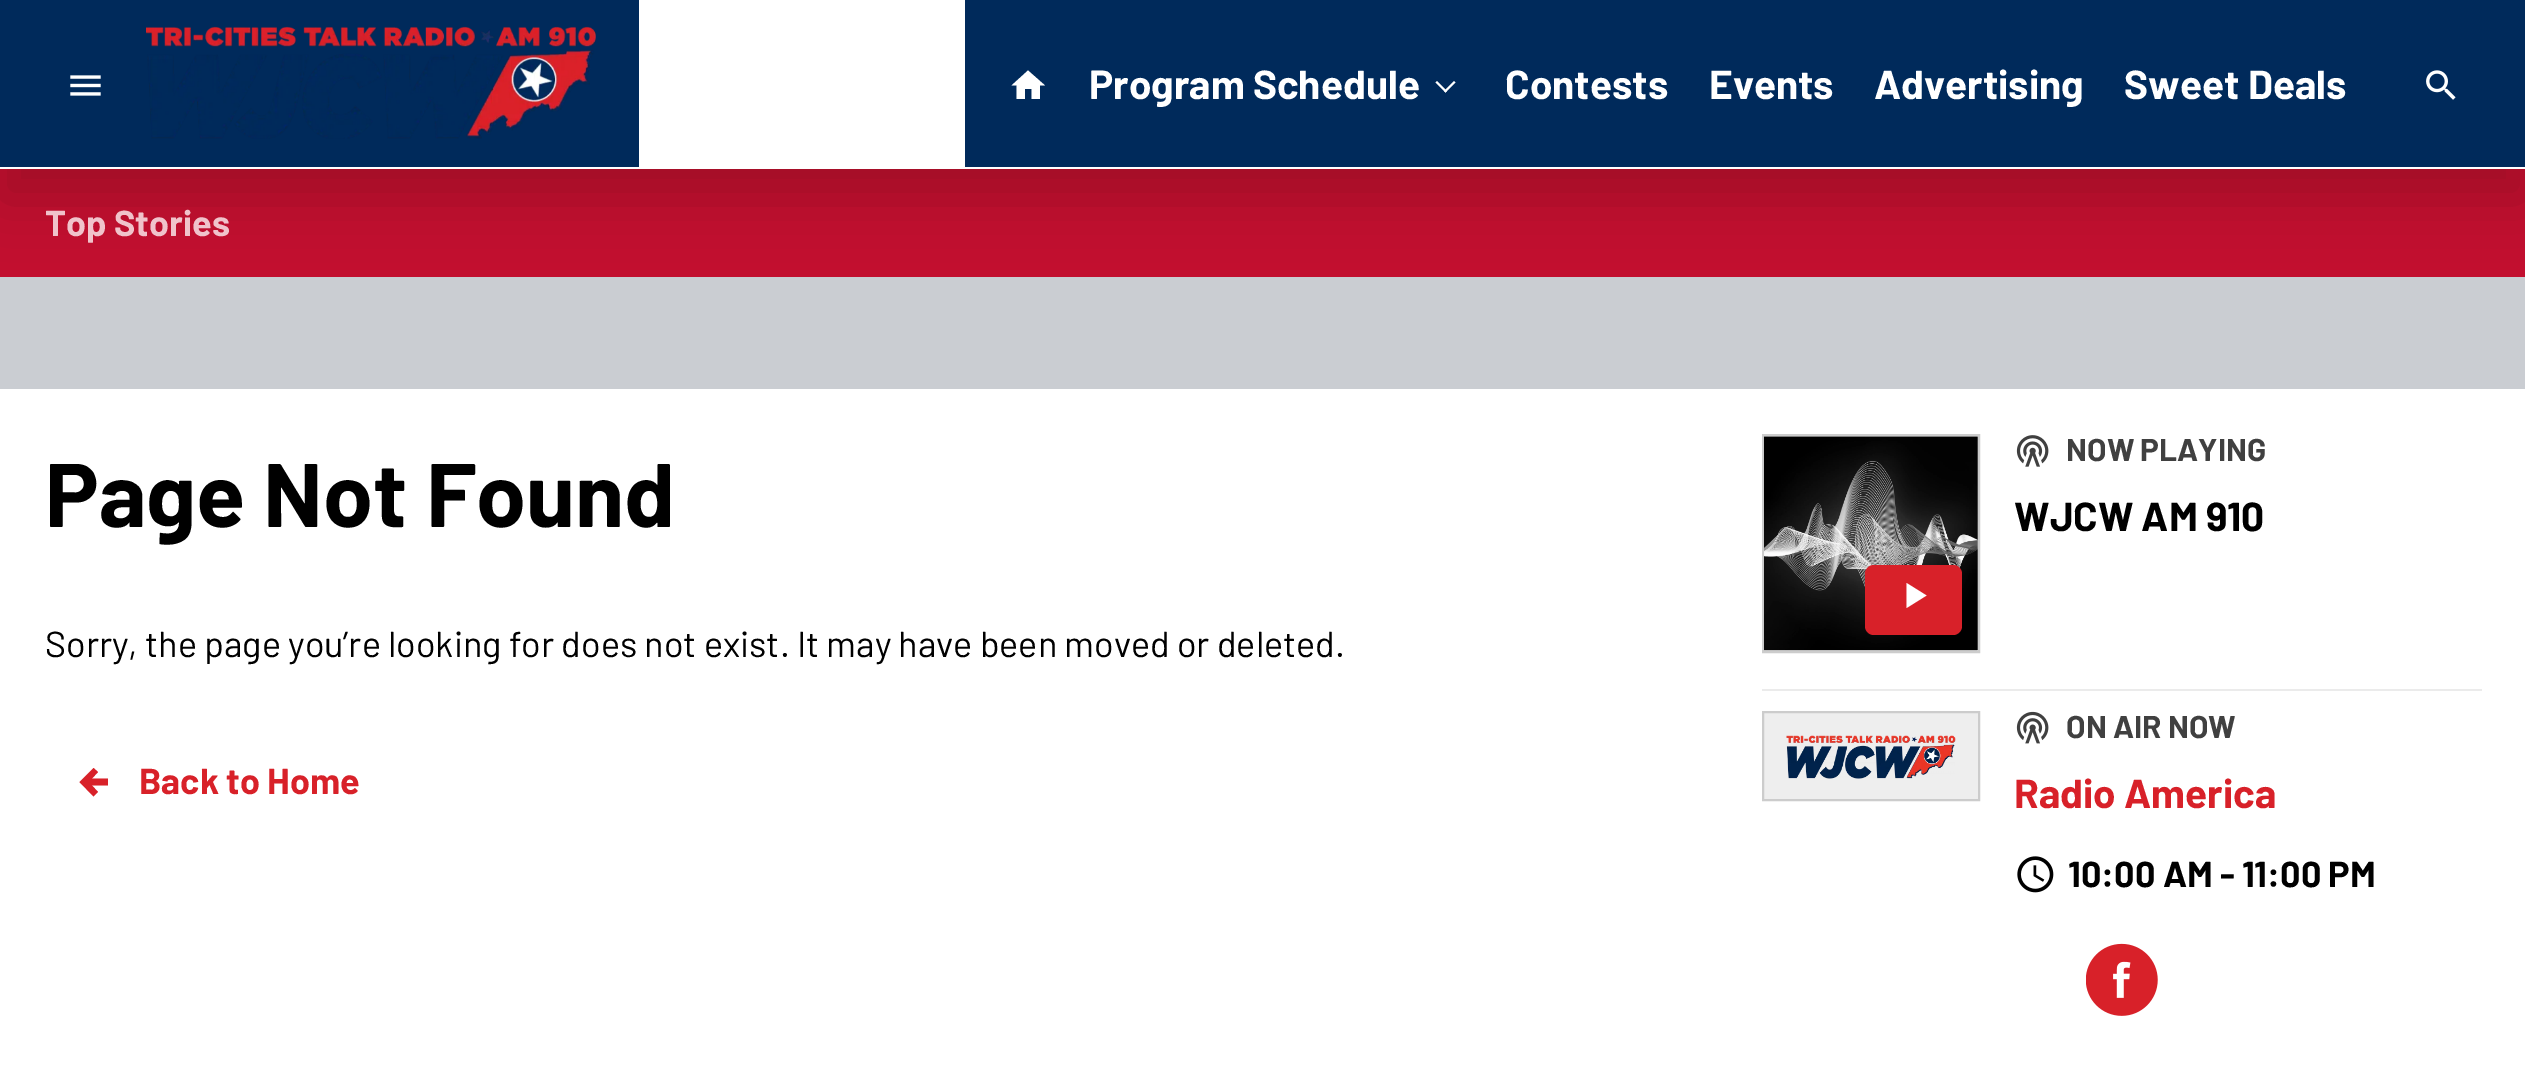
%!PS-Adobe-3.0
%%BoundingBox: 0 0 2525 1070
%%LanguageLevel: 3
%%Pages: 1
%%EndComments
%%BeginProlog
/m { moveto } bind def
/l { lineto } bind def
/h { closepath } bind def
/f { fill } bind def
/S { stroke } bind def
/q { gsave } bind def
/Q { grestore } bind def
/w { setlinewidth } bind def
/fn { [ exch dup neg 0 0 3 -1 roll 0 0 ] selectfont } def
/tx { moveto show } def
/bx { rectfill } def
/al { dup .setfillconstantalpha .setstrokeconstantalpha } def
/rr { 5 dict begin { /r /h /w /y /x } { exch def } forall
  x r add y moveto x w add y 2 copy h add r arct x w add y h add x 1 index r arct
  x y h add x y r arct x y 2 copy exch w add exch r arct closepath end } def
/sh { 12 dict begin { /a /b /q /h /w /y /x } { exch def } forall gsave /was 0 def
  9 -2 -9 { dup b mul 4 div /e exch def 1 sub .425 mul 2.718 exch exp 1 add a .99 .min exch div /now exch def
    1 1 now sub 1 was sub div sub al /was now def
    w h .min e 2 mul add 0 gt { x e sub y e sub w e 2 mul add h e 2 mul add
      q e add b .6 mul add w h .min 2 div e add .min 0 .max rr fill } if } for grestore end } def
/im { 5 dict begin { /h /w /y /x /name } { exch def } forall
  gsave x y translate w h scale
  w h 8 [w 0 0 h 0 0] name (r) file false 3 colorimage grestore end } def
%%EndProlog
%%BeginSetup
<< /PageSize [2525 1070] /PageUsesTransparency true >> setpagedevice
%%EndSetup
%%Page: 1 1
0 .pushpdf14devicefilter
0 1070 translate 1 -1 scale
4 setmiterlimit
0.792 0.804 0.824 setrgbcolor
0 0 2525 1070 bx
0.761 0.059 0.184 setrgbcolor
0 169 2525 108 bx
0 setgray
0 32 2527 168 0 28 0.16 sh
0 0.165 0.357 setrgbcolor
0 0 2525 167 bx
1 setgray
0 167 2525 2 bx
(image0.raw) 70 75 31 21 im
(image1.raw) 146 26 450 113 im
639 0 326 167 bx
1025 99 m 1025 89 l 1031.5 89 l 1031.5 99 l 1040 99 l 1040 85.5 l 1045 85.5 l 1028 70.5 l 1011.5 85.5 l 1016.5 85.5 l 1016.5 99 l h f
/Barlow-Bold 40.5 fn
(Program Schedule) 1089 99 tx
1455.5 82.5 m 1445.5 92.5 l 1444 91 l 1454 81 l h f
1447 91 m 1445.5 92.5 l 1435.5 82.5 l 1437 81 l h f
(Contests) 1505 99 tx
(Events) 1709 99 tx
(Advertising) 1874 99 tx
(Sweet Deals) 2124 99 tx
(image2.raw) 2426 70 30 30 im
/Barlow-Bold 36 fn
0.941 0.765 0.796 setrgbcolor
(Top Stories) 45 236 tx
1 setgray
0 389 2525 681 bx
/Barlow-Bold 90 fn
0 setgray
(Page Not Found) 45 527 tx
/Barlow-Regular 36 fn
(Sorry, the page you’re looking for does not exist. It may have been moved or deleted.) 45 657 tx
0.847 0.129 0.161 setrgbcolor
108 778.5 m 108 785.5 l 92 785.5 l 98 792 l 93.5 796.5 l 79.5 782 l 93.5 768 l 98 772 l 92 778.5 l h f
/Barlow-Bold 36 fn
(Back to Home) 139 794 tx
0.8 setgray
2 w
1763 435 216 217 rectstroke
(image3.raw) 1764 436 214 215 im
0.847 0.129 0.161 setrgbcolor
1865 565 97 70 9 rr f
1 setgray
1906.5 583 m 1906.5 608 l 1926.5 595.5 l h f
(image4.raw) 2016 435 33 32 im
/Barlow-Bold 31.5 fn
0.251 setgray
(NOW PLAYING) 2066 461 tx
/Barlow-Bold 40.5 fn
0 setgray
(WJCW AM 910) 2014 531 tx
0.922 setgray
1762 689 720 2 bx
0.933 setgray
1763 712 m 1979 712 l 1979 800 l 1763 800 l h q f Q
0.8 setgray
S
(image5.raw) 1786 735 170 44 im
(image6.raw) 2016 711 33 33 im
/Barlow-Bold 31.5 fn
0.251 setgray
(ON AIR NOW) 2066 738 tx
/Barlow-Bold 40.5 fn
0.847 0.129 0.161 setrgbcolor
(Radio America) 2014 808 tx
(image7.raw) 2017 856 37 37 im
/Barlow-Bold 36 fn
0 setgray
(10:00 AM - 11:00 PM) 2068 887 tx
(image8.raw) 2086 943 72 73 im
.poppdf14devicefilter showpage
%%EOF
